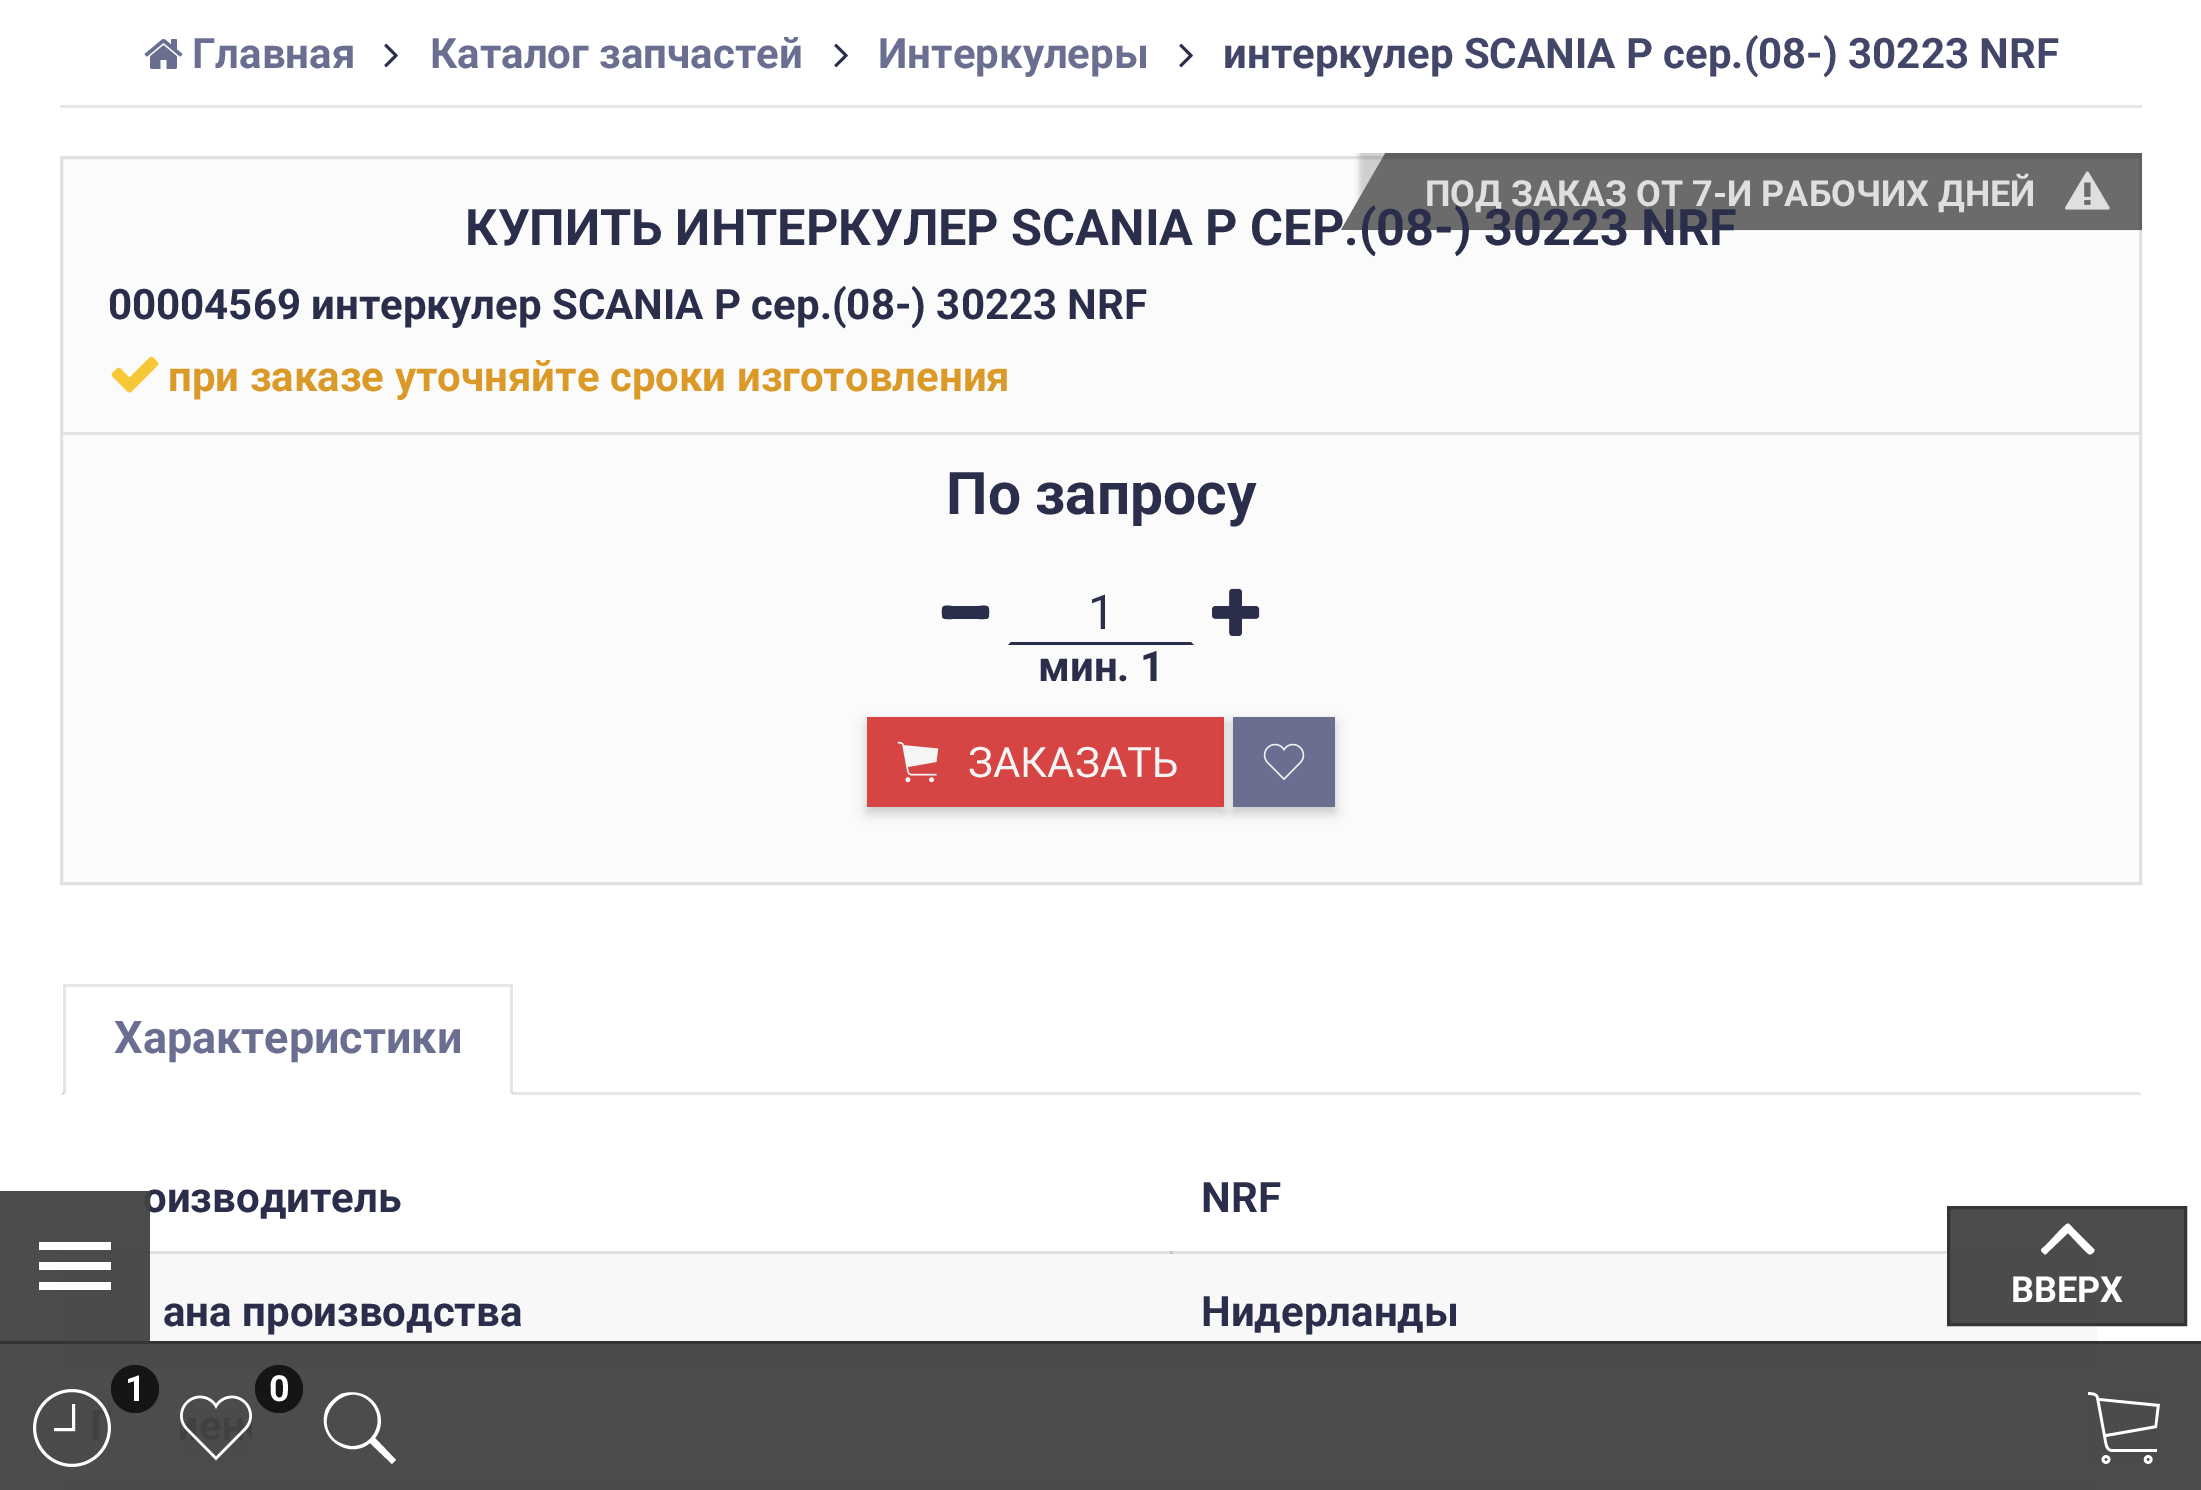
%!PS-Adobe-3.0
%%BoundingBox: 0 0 2201 1490
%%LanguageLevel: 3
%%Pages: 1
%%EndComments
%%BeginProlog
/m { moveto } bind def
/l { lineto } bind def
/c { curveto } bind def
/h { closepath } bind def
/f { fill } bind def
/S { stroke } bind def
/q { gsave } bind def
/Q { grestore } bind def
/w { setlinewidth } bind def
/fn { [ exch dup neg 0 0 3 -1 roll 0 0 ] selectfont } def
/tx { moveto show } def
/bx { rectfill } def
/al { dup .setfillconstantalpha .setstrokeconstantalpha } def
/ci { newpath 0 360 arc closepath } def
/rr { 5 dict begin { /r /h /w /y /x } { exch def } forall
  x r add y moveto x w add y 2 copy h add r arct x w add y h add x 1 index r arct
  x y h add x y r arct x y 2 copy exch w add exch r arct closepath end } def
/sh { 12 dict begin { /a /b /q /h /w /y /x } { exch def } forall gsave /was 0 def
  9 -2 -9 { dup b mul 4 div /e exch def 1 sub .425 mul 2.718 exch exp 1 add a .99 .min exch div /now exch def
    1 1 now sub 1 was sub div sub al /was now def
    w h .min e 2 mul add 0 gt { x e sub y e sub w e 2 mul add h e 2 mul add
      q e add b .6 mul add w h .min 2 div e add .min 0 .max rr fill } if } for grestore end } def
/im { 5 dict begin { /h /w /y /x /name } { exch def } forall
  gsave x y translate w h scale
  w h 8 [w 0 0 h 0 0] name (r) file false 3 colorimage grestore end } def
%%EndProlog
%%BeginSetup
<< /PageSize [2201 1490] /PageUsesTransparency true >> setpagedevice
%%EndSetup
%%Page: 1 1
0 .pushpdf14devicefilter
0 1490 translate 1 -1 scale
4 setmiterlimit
1 setgray
0 0 2201 1490 bx
0.875 setgray
1170 1251 927 3 bx
0.973 setgray
60 1251 1110 114 bx
0.1 al
0 setgray
60 1251 1113 3 bx
/Roboto-Bold 42 fn
1 al
0.169 0.18 0.29 setrgbcolor
(оизводитель) 143 1212 tx
0.95 al
0.259 setgray
0 1191 150 150 bx
1 al
1 setgray
39 1290 m 39 1282 l 111 1282 l 111 1290 l h 39 1270 m 39 1262 l 111 1262 l 111 1270 l h 39 1242 m 111 1242 l 111 1250 l 39 1250 l h f
0.902 setgray
60 105 2082 3 bx
(image0.raw) 144 38 39 31 im
0.416 0.435 0.569 setrgbcolor
(Главная) 192 68 tx
(image1.raw) 384 43 14 25 im
(Каталог запчастей) 430 68 tx
(image1.raw) 834 43 14 25 im
(Интеркулеры) 878 68 tx
(image1.raw) 1179 43 14 25 im
0.259 0.278 0.412 setrgbcolor
(интеркулер SCANIA P сер.\(08-\) 30223 NRF) 1223 68 tx
q
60 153 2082 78 rectclip
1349 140 m 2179 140 l 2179 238 l 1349 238 l h 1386 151.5 m 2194.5 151.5 l 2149.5 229.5 l 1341 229.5 l h eoclip newpath
0 setgray
1359 150 810 78 0 3 0.2 sh
Q
q
60 153 2082 78 rectclip
0.85 al
0.259 setgray
1386 152 m 2195 152 l 2149 230 l 1341 230 l h f
Q
/Roboto-Bold 36 fn
0.875 setgray
(ПОД ЗАКАЗ ОТ 7-И РАБОЧИХ ДНЕЙ) 1425 206 tx
(image2.raw) 2065 171 45 39 im
0.1 al
0.863 setgray
60 156 2082 729 bx
0 setgray
3 w
61.5 157.5 2079 726 rectstroke
/Roboto-Bold 50.4 fn
1 al
0.169 0.18 0.29 setrgbcolor
465 245 m -0.25 0 32 (КУПИТЬ ИНТЕРКУЛЕР SCANIA P СЕР.\(08-\) 30223) widthshow
(NRF) 1641 245 tx
/Roboto-Bold 42 fn
(00004569 интеркулер SCANIA P сер.\(08-\) 30223 NRF) 108 319 tx
(image3.raw) 111 356 48 37 im
0.859 0.604 0.157 setrgbcolor
(при заказе уточняйте сроки изготовления) 168 391 tx
0.886 setgray
63 432 2076 3 bx
/Roboto-Bold 58.75 fn
0.169 0.18 0.29 setrgbcolor
(По запросу) 946 514 tx
989 609 m 989 620 990 619 979 619 c 952 619 l 941 619 942 620 942 609 c 942 604 950 606 952 606 c 979 606 l 981 606 989 604 989 609 c h f
1194 645 m 1008 645 l 1011 642 l 1191 642 l h f
/Roboto-Regular 48 fn
(1) 1088 629 tx
(image4.raw) 1212 588 48 48 im
/Roboto-Bold 42 fn
(мин. 1) 1038 681 tx
0 setgray
867 723 357 90 0 6 0.2 sh
0.843 0.267 0.267 setrgbcolor
867 717 357 90 bx
(image5.raw) 897 741 42 42 im
/Roboto-Regular 42 fn
0.961 setgray
(ЗАКАЗАТЬ) 968 777 tx
0 setgray
1233 723 102 90 0 6 0.2 sh
0.416 0.435 0.569 setrgbcolor
1233 717 102 90 bx
(image6.raw) 1263 743 42 38 im
0.902 setgray
2142 1095 m 60 1095 l 63 1092 l 2139 1092 l h f
63 984 m 513 984 l 510 987 l 66 987 l h f
0.1 al
0 setgray
513 984 m 513 1095 l 510 1092 l 510 987 l h f
1 al
1 setgray
513 1095 m 63 1095 l 66 1092 l 510 1092 l h f
0.1 al
0 setgray
63 1095 m 63 984 l 66 987 l 66 1092 l h f
/Roboto-Bold 45 fn
1 al
0.416 0.435 0.569 setrgbcolor
(Характеристики) 114 1053 tx
/Roboto-Bold 42 fn
0.169 0.18 0.29 setrgbcolor
(NRF) 1201 1212 tx
0.902 setgray
1170 1365 927 3 bx
0.1 al
0 setgray
60 1365 1113 3 bx
1 al
0.169 0.18 0.29 setrgbcolor
(ана производства) 163 1326 tx
0.973 setgray
1170 1254 927 111 bx
0.169 0.18 0.29 setrgbcolor
(Нидерланды) 1201 1326 tx
0.969 setgray
60 1479 1110 11 bx
1170 1482 927 8 bx
0.871 setgray
1170 1479 927 3 bx
0.1 al
0 setgray
60 1479 1113 3 bx
0.95 al
0.259 setgray
0 1344 2201 146 bx
1 al
0.204 setgray
0 1341 2201 3 bx
0.95 al
0.259 setgray
1948.5 1207.5 m 2185.5 1207.5 l 2185.5 1324.5 l 1948.5 1324.5 l h f
1 al
0.204 setgray
1948.5 1207.5 m 2185.5 1207.5 l 2185.5 1324.5 l 1948.5 1324.5 l h S
1 setgray
2094 1249 m 2095 1250 2094 1252 2093 1253 c 2089 1256 2089 1254 2085 1251 c 2068 1233 l 2046 1254 l 2045 1255 2044 1254 2043 1253 c 2039 1249 2042 1249 2046 1245 c 2062 1228 l 2069 1222 2067 1222 2073 1228 c h f
/Roboto-Bold 36 fn
(ВВЕРХ) 2011 1302 tx
(image7.raw) 33 1389 78 78 im
0.082 setgray
135 1389 24 ci f
1 setgray
(1) 125 1401 tx
0.082 setgray
279 1389 24 ci f
1 setgray
(0) 269 1401 tx
(image8.raw) 180 1395 72 66 im
396 1460 m 375 1438 l 385 1426 382 1406 368 1397 c 361 1392 350 1391 341 1394 c 335 1397 329 1403 326 1409 c 315 1437 348 1461 370 1443 c 392 1464 l h 334 1439 m 311 1415 347 1379 370 1402 c 387 1419 374 1448 350 1446 c 344 1445 339 1443 334 1439 c h f
(image9.raw) 2088 1392 72 72 im
.poppdf14devicefilter showpage
%%EOF
